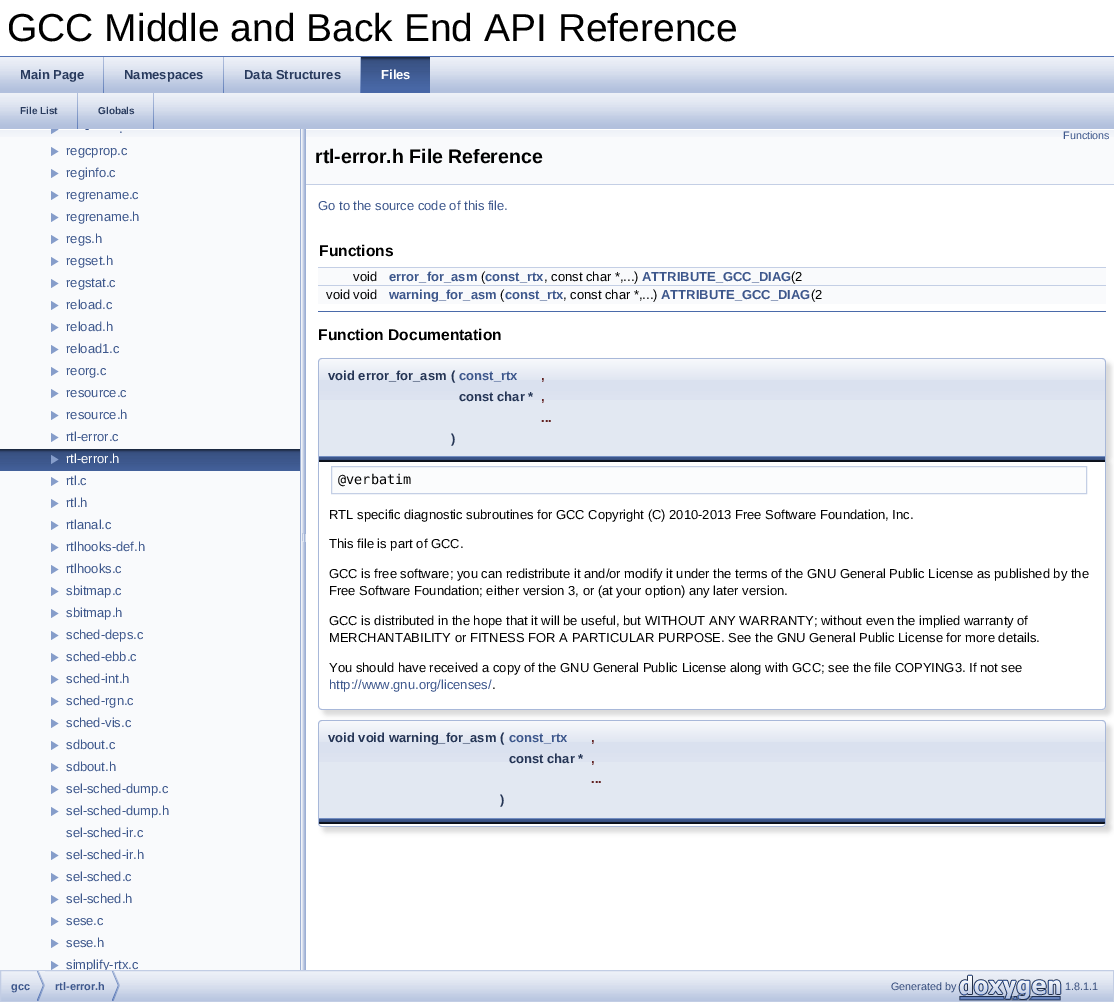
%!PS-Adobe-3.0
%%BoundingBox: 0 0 1114 1002
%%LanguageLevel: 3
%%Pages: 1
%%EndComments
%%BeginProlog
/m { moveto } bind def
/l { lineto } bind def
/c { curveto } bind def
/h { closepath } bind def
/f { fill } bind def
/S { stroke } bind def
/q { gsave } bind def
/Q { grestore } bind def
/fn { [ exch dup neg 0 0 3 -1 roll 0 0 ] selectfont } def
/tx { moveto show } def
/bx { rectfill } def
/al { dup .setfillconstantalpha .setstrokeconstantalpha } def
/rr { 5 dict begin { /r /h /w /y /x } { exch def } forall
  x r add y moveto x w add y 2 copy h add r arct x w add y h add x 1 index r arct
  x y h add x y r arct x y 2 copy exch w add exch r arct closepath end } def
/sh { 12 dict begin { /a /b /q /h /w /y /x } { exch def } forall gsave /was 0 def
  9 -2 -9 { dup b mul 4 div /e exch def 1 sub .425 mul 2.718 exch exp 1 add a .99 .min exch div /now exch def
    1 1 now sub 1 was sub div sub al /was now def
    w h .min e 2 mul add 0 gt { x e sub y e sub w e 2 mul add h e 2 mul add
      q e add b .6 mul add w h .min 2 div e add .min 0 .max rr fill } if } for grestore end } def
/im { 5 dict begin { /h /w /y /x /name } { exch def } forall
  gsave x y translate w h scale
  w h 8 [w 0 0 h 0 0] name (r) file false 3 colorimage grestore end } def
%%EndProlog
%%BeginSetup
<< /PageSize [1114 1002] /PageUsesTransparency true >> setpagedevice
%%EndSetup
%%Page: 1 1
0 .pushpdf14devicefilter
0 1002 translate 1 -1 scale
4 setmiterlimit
1 setgray
0 0 1114 1002 bx
0.325 0.451 0.706 setrgbcolor
0 56 1114 1 bx
/LiberationSans-Regular 39 fn
0 setgray
(GCC Middle and Back End API Reference) 7 41 tx
(image0.raw) 0 57 1114 36 im
(image1.raw) 103 57 1 36 im
/LiberationSans-Bold 13 fn
0.157 0.227 0.365 setrgbcolor
(Main Page) 20 79 tx
(image1.raw) 223 57 1 36 im
(Namespaces) 124 79 tx
(image1.raw) 360 57 1 36 im
(Data Structures) 244 79 tx
(image2.raw) 361 57 69 36 im
1 setgray
(Files) 381 79 tx
(image0.raw) 0 93 1114 36 im
(image1.raw) 77 93 1 36 im
/LiberationSans-Bold 10 fn
0.157 0.227 0.365 setrgbcolor
(File List) 20 114 tx
(image1.raw) 153 93 1 36 im
(Globals) 98 114 tx
0.976 0.98 0.988 setrgbcolor
0 137 300 833 bx
(image3.raw) 0 129 300 8 im
(image4.raw) 51 129 8 5 im
/LiberationSans-Regular 13 fn
0.239 0.341 0.549 setrgbcolor
(-) 85 133 tx
(.) 119 133 tx
(image5.raw) 51 147 8 9 im
(regcprop.c) 66 155 tx
(image5.raw) 51 169 8 9 im
(reginfo.c) 66 177 tx
(image5.raw) 51 191 8 9 im
(regrename.c) 66 199 tx
(image5.raw) 51 213 8 9 im
(regrename.h) 66 221 tx
(image5.raw) 51 235 8 9 im
(regs.h) 66 243 tx
(image5.raw) 51 257 8 9 im
(regset.h) 66 265 tx
(image5.raw) 51 279 8 9 im
(regstat.c) 66 287 tx
(image5.raw) 51 301 8 9 im
(reload.c) 66 309 tx
(image5.raw) 51 323 8 9 im
(reload.h) 66 331 tx
(image5.raw) 51 345 8 9 im
(reload1.c) 66 353 tx
(image5.raw) 51 367 8 9 im
(reorg.c) 66 375 tx
(image5.raw) 51 389 8 9 im
(resource.c) 66 397 tx
(image5.raw) 51 411 8 9 im
(resource.h) 66 419 tx
(image5.raw) 51 433 8 9 im
(rtl-error.c) 66 441 tx
(image6.raw) 0 449 300 22 im
(image7.raw) 51 455 8 9 im
1 setgray
(rtl-error.h) 66 463 tx
(image5.raw) 51 477 8 9 im
0.239 0.341 0.549 setrgbcolor
(rtl.c) 66 485 tx
(image5.raw) 51 499 8 9 im
(rtl.h) 66 507 tx
(image5.raw) 51 521 8 9 im
(rtlanal.c) 66 529 tx
(image5.raw) 51 543 8 9 im
(rtlhooks-def.h) 66 551 tx
(image5.raw) 51 565 8 9 im
(rtlhooks.c) 66 573 tx
(image5.raw) 51 587 8 9 im
(sbitmap.c) 66 595 tx
(image5.raw) 51 609 8 9 im
(sbitmap.h) 66 617 tx
(image5.raw) 51 631 8 9 im
(sched-deps.c) 66 639 tx
(image5.raw) 51 653 8 9 im
(sched-ebb.c) 66 661 tx
(image5.raw) 51 675 8 9 im
(sched-int.h) 66 683 tx
(image5.raw) 51 697 8 9 im
(sched-rgn.c) 66 705 tx
(image5.raw) 51 719 8 9 im
(sched-vis.c) 66 727 tx
(image5.raw) 51 741 8 9 im
(sdbout.c) 66 749 tx
(image5.raw) 51 763 8 9 im
(sdbout.h) 66 771 tx
(image5.raw) 51 785 8 9 im
(sel-sched-dump.c) 66 793 tx
(image5.raw) 51 807 8 9 im
(sel-sched-dump.h) 66 815 tx
(sel-sched-ir.c) 66 837 tx
(image5.raw) 51 851 8 9 im
(sel-sched-ir.h) 66 859 tx
(image5.raw) 51 873 8 9 im
(sel-sched.c) 66 881 tx
(image5.raw) 51 895 8 9 im
(sel-sched.h) 66 903 tx
(image5.raw) 51 917 8 9 im
(sese.c) 66 925 tx
(image5.raw) 51 939 8 9 im
(sese.h) 66 947 tx
(image5.raw) 51 961 8 9 im
q
0 129 300 841 rectclip
(simplify-rtx.c) 66 969 tx
Q
(image8.raw) 300 129 6 841 im
0.976 0.98 0.988 setrgbcolor
306 137 808 47 bx
(image9.raw) 306 129 808 8 im
0.769 0.812 0.898 setrgbcolor
306 184 808 1 bx
/LiberationSans-Regular 10.75 fn
0.239 0.341 0.549 setrgbcolor
(Functions) 1063 139 tx
/LiberationSans-Bold 19.5 fn
0 setgray
(rtl-error.h File Reference) 315 163 tx
/LiberationSans-Regular 13 fn
0.239 0.341 0.549 setrgbcolor
(Go to the source code of this file.) 318 210 tx
/LiberationSans-Bold 15.6 fn
0 setgray
(Functions) 319 256 tx
0.976 0.98 0.988 setrgbcolor
318 268 788 17 bx
0.769 0.812 0.898 setrgbcolor
318 267 788 1 bx
/LiberationSans-Regular 13 fn
0 setgray
(void) 353 281 tx
/LiberationSans-Bold 13 fn
0.239 0.341 0.549 setrgbcolor
(error_for_asm) 389 281 tx
/LiberationSans-Regular 13 fn
0 setgray
(\() 481 281 tx
/LiberationSans-Bold 13 fn
0.239 0.341 0.549 setrgbcolor
(const_rtx) 485 281 tx
/LiberationSans-Regular 13 fn
0 setgray
(, const char *,...\)) 544 281 tx
/LiberationSans-Bold 13 fn
0.239 0.341 0.549 setrgbcolor
(ATTRIBUTE_GCC_DIAG) 642 281 tx
/LiberationSans-Regular 13 fn
0 setgray
(\(2) 791 281 tx
0.976 0.98 0.988 setrgbcolor
318 286 788 18 bx
0.769 0.812 0.898 setrgbcolor
318 285 788 1 bx
0 setgray
(void void) 326 299 tx
/LiberationSans-Bold 13 fn
0.239 0.341 0.549 setrgbcolor
(warning_for_asm) 389 299 tx
/LiberationSans-Regular 13 fn
0 setgray
(\() 500 299 tx
/LiberationSans-Bold 13 fn
0.239 0.341 0.549 setrgbcolor
(const_rtx) 505 299 tx
/LiberationSans-Regular 13 fn
0 setgray
(, const char *,...\)) 563 299 tx
/LiberationSans-Bold 13 fn
0.239 0.341 0.549 setrgbcolor
(ATTRIBUTE_GCC_DIAG) 661 299 tx
/LiberationSans-Regular 13 fn
0 setgray
(\(2) 811 299 tx
0.29 0.416 0.667 setrgbcolor
318 311 788 1 bx
/LiberationSans-Bold 15.6 fn
0 setgray
(Function Documentation) 318 340 tx
323 363 788 98 4 2.5 0.15 sh
0.886 0.91 0.949 setrgbcolor
322 358 m 1102 358 l 1104 358 1106 360 1106 362 c 1106 456 l 318 456 l 318 362 l 318 360 320 358 322 358 c h f
(image10.raw) 318 359 788 41 im
0.659 0.722 0.851 setrgbcolor
322 358 m 1102 358 l 1104 358 1106 360 1106 362 c 1106 456 l 318 456 l 318 362 l 318 360 320 358 322 358 c h 322 359 m 1102 359 l 1104 359 1105 360 1105 362 c 1105 456 l 319 456 l 319 362 l 319 360 320 359 322 359 c h eofill
/LiberationSans-Bold 13 fn
0.145 0.208 0.333 setrgbcolor
(void error_for_asm) 328 380 tx
(\() 451 380 tx
0.239 0.341 0.549 setrgbcolor
(const_rtx) 459 380 tx
0.376 0.125 0.125 setrgbcolor
(,) 541 380 tx
0.145 0.208 0.333 setrgbcolor
(const char *) 459 401 tx
0.376 0.125 0.125 setrgbcolor
(,) 541 401 tx
(...) 541 422 tx
0.145 0.208 0.333 setrgbcolor
(\)) 451 443 tx
0 setgray
323 461 788 254 4 2.5 0.15 sh
1 setgray
318 456 m 1106 456 l 1106 706 l 1106 708 1104 710 1102 710 c 322 710 l 320 710 318 708 318 706 c h f
(image11.raw) 319 456 786 6 im
0.659 0.722 0.851 setrgbcolor
318 456 m 1106 456 l 1106 706 l 1106 708 1104 710 1102 710 c 322 710 l 320 710 318 708 318 706 c h 319 456 m 1105 456 l 1105 706 l 1105 708 1104 709 1102 709 c 322 709 l 320 709 319 708 319 706 c h eofill
0.984 0.988 0.992 setrgbcolor
331.5 466.5 m 1086.5 466.5 l 1086.5 493.5 l 331.5 493.5 l h q f Q
0.769 0.812 0.898 setrgbcolor
S
/DejaVuSansMono-Regular 13.5 fn
0 setgray
(@verbatim) 338 484 tx
/LiberationSans-Regular 13 fn
(RTL specific diagnostic subroutines for GCC Copyright \(C\) 2010-2013 Free Software Foundation, Inc.) 329 519 tx
(This file is part of GCC.) 329 548 tx
(GCC is free software; you can redistribute it and/or modify it under the terms of the GNU General Public License as published by the) 329 578 tx
(Free Software Foundation; either version 3, or \(at your option\) any later version.) 329 595 tx
(GCC is distributed in the hope that it will be useful, but WITHOUT ANY WARRANTY; without even the implied warranty of) 329 625 tx
(MERCHANTABILITY or FITNESS FOR A PARTICULAR PURPOSE. See the GNU General Public License for more details.) 329 642 tx
(You should have received a copy of the GNU General Public License along with GCC; see the file COPYING3. If not see) 329 672 tx
0.239 0.341 0.549 setrgbcolor
(http://www.gnu.org/licenses/) 329 689 tx
0 setgray
(.) 492 689 tx
323 725 788 98 4 2.5 0.15 sh
0.886 0.91 0.949 setrgbcolor
322 720 m 1102 720 l 1104 720 1106 722 1106 724 c 1106 818 l 318 818 l 318 724 l 318 722 320 720 322 720 c h f
(image12.raw) 318 721 788 41 im
0.659 0.722 0.851 setrgbcolor
322 720 m 1102 720 l 1104 720 1106 722 1106 724 c 1106 818 l 318 818 l 318 724 l 318 722 320 720 322 720 c h 322 721 m 1102 721 l 1104 721 1105 722 1105 724 c 1105 818 l 319 818 l 319 724 l 319 722 320 721 322 721 c h eofill
/LiberationSans-Bold 13 fn
0.145 0.208 0.333 setrgbcolor
(void void warning_for_asm) 328 742 tx
(\() 500 742 tx
0.239 0.341 0.549 setrgbcolor
(const_rtx) 509 742 tx
0.376 0.125 0.125 setrgbcolor
(,) 591 742 tx
0.145 0.208 0.333 setrgbcolor
(const char *) 509 763 tx
0.376 0.125 0.125 setrgbcolor
(,) 591 763 tx
(...) 591 783 tx
0.145 0.208 0.333 setrgbcolor
(\)) 500 804 tx
0 setgray
323 823 788 9 4 2.5 0.15 sh
1 setgray
318 818 m 1106 818 l 1106 823 l 1106 825 1104 827 1102 827 c 322 827 l 320 827 318 825 318 823 c h f
(image13.raw) 318 818 788 6 im
0.659 0.722 0.851 setrgbcolor
318 818 m 1106 818 l 1106 823 l 1106 825 1104 827 1102 827 c 322 827 l 320 827 318 825 318 823 c h 319 818 m 1105 818 l 1105 823 l 1105 825 1104 826 1102 826 c 322 826 l 320 826 319 825 319 823 c h eofill
(image14.raw) 1 971 1112 30 im
0.761 0.804 0.894 setrgbcolor
0.5 970.5 1113 31 rectstroke
(image15.raw) 37 971 8 30 im
/LiberationSans-Bold 11 fn
0.239 0.341 0.549 setrgbcolor
(gcc) 11 990 tx
(image15.raw) 112 971 8 30 im
(rtl-error.h) 55 990 tx
/LiberationSans-Regular 10.75 fn
0.212 0.302 0.486 setrgbcolor
(Generated by) 891 990 tx
(image16.raw) 958 974 104 27 im
(1.8.1.1) 1065 990 tx
.poppdf14devicefilter showpage
%%EOF
